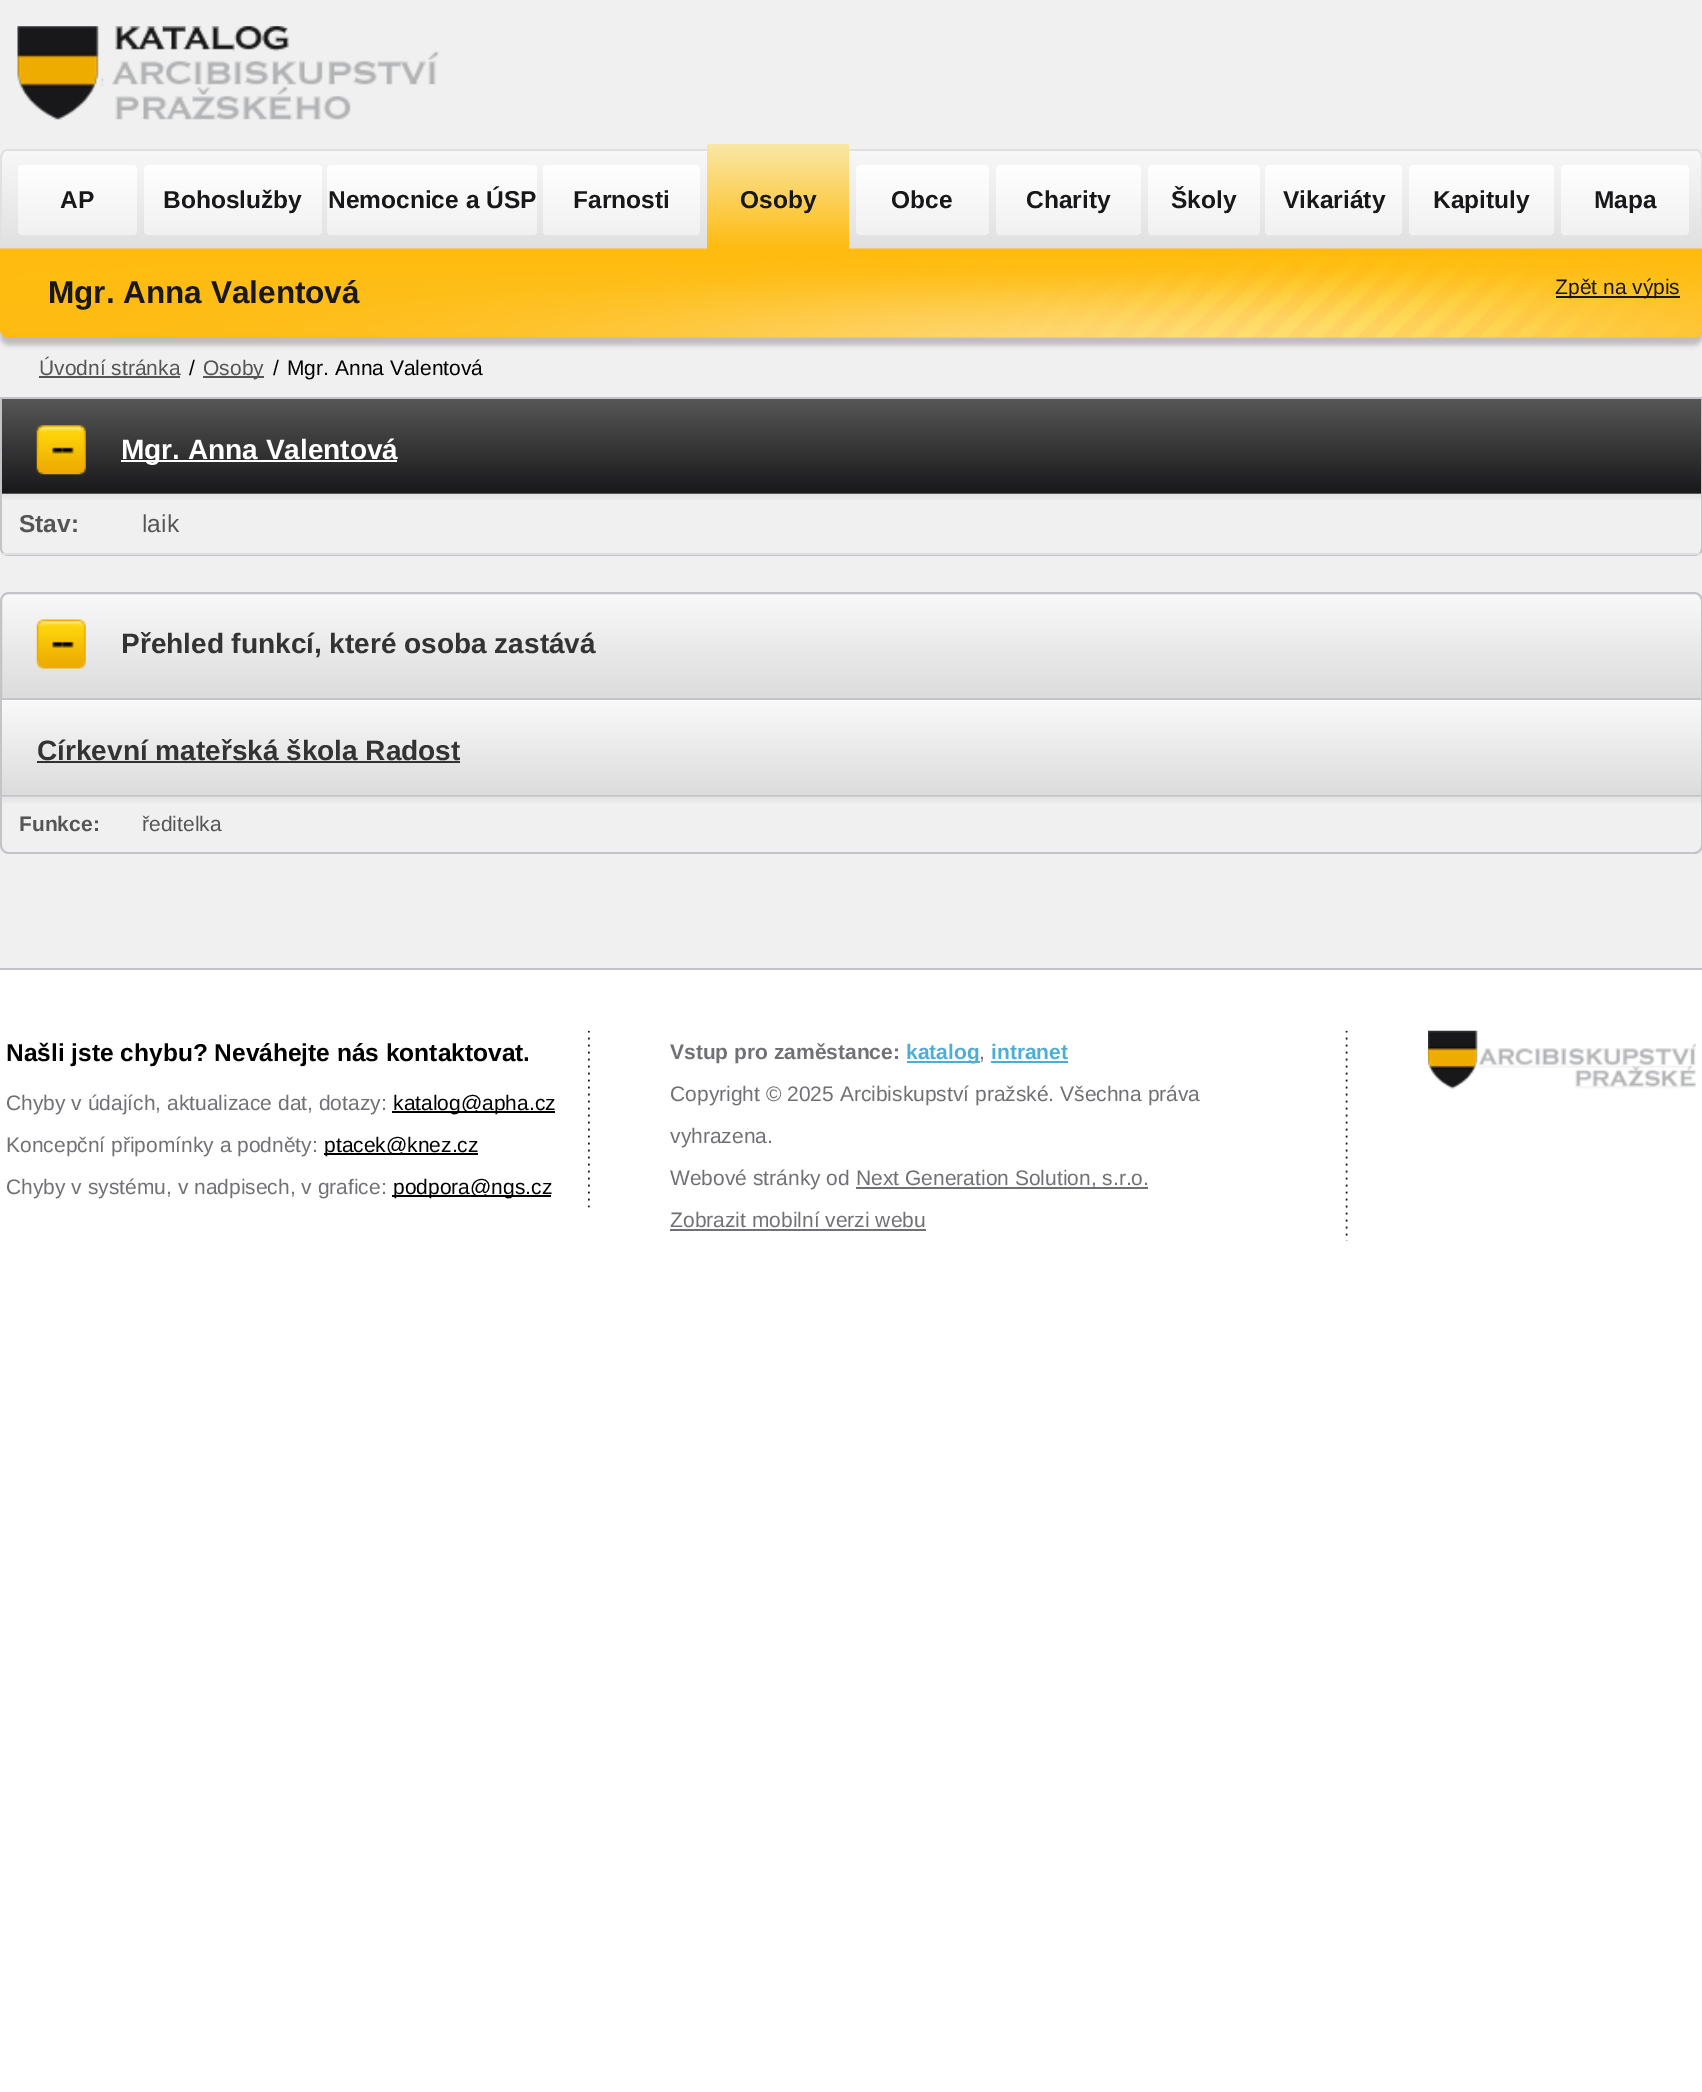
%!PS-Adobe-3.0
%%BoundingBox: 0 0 1702 2092
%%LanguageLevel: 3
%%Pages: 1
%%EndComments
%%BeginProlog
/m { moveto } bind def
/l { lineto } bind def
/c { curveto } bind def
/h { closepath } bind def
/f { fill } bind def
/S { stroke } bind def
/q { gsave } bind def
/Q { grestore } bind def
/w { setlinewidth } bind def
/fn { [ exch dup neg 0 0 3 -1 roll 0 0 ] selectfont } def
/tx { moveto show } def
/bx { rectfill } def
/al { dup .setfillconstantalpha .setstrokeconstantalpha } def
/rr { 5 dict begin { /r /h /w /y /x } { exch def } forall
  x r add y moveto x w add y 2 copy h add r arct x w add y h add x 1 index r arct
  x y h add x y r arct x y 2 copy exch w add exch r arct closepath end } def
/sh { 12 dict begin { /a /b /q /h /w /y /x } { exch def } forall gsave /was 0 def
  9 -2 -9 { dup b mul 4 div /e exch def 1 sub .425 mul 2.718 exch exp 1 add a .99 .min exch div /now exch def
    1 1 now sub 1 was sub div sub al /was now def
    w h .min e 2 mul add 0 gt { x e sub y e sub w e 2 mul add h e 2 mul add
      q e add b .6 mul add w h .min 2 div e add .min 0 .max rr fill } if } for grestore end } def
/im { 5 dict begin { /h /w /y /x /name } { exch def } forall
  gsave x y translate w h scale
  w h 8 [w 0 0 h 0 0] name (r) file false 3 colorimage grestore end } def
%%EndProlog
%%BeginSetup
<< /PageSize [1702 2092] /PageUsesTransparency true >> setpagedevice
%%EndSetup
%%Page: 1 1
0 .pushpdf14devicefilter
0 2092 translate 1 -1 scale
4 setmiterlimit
1 setgray
0 0 1702 2092 bx
0.941 setgray
0 0 1702 968 bx
0.761 0.769 0.78 setrgbcolor
0 968 1702 2 bx
(image0.raw) 17 26 423 95 im
q
9 149 m 1694 149 l 1699 149 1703 153 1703 158 c 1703 249 l 0 249 l 0 158 l 0 153 4 149 9 149 c h clip newpath
q 0 149 m 1702 149 l 1702 151 l 0 151 l h clip newpath
<< /ShadingType 2 /ColorSpace /DeviceRGB /Coords [851 52 851 151] /Extend [true true] /Function << /FunctionType 2 /Domain [0 1] /C0 [0.973 0.973 0.976] /C1 [0.878 0.878 0.878] /N 1 >> >> shfill Q
q 0 151 m 1702 151 l 1702 249 l 0 249 l h clip newpath
<< /ShadingType 2 /ColorSpace /DeviceRGB /Coords [851 150 851 249] /Extend [true true] /Function << /FunctionType 2 /Domain [0 1] /C0 [0.973 0.973 0.976] /C1 [0.878 0.878 0.878] /N 1 >> >> shfill Q
Q
0.878 setgray
9 149 m 1694 149 l 1699 149 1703 153 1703 158 c 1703 248 l 0 248 l 0 158 l 0 153 4 149 9 149 c h 9 150 m 1694 150 l 1698 150 1701 154 1701 158 c 1701 248 l 2 248 l 2 158 l 2 154 5 150 9 150 c h eofill
q 18 165 119 70 5 rr clip newpath
<< /ShadingType 2 /ColorSpace /DeviceRGB /Coords [77 165 77 235] /Extend [true true] /Function << /FunctionType 2 /Domain [0 1] /C0 [1 1 1] /C1 [0.945 0.945 0.949] /N 1 >> >> shfill Q
/LiberationSans-Bold 24.5 fn
0.094 0.09 0.098 setrgbcolor
(AP) 60 208 tx
q 144 165 178 70 5 rr clip newpath
<< /ShadingType 2 /ColorSpace /DeviceRGB /Coords [233 165 233 235] /Extend [true true] /Function << /FunctionType 2 /Domain [0 1] /C0 [1 1 1] /C1 [0.945 0.945 0.949] /N 1 >> >> shfill Q
(Bohoslužby) 163 208 tx
q 327 165 210 70 5 rr clip newpath
<< /ShadingType 2 /ColorSpace /DeviceRGB /Coords [432 165 432 235] /Extend [true true] /Function << /FunctionType 2 /Domain [0 1] /C0 [1 1 1] /C1 [0.945 0.945 0.949] /N 1 >> >> shfill Q
(Nemocnice a ÚSP) 328 208 tx
q 543 165 157 70 5 rr clip newpath
<< /ShadingType 2 /ColorSpace /DeviceRGB /Coords [621 165 621 235] /Extend [true true] /Function << /FunctionType 2 /Domain [0 1] /C0 [1 1 1] /C1 [0.945 0.945 0.949] /N 1 >> >> shfill Q
(Farnosti) 573 208 tx
q 707 144 m 849 144 l 849 249 l 707 249 l h clip newpath
<< /ShadingType 2 /ColorSpace /DeviceRGB /Coords [778 144 778 249] /Extend [true true] /Function << /FunctionType 2 /Domain [0 1] /C0 [0.98 0.906 0.651] /C1 [1 0.733 0.059] /N 1 >> >> shfill Q
(Osoby) 740 208 tx
q 856 165 133 70 5 rr clip newpath
<< /ShadingType 2 /ColorSpace /DeviceRGB /Coords [922 165 922 235] /Extend [true true] /Function << /FunctionType 2 /Domain [0 1] /C0 [1 1 1] /C1 [0.945 0.945 0.949] /N 1 >> >> shfill Q
(Obce) 891 208 tx
q 996 165 145 70 5 rr clip newpath
<< /ShadingType 2 /ColorSpace /DeviceRGB /Coords [1068 165 1068 235] /Extend [true true] /Function << /FunctionType 2 /Domain [0 1] /C0 [1 1 1] /C1 [0.945 0.945 0.949] /N 1 >> >> shfill Q
(Charity) 1026 208 tx
q 1148 165 112 70 5 rr clip newpath
<< /ShadingType 2 /ColorSpace /DeviceRGB /Coords [1204 165 1204 235] /Extend [true true] /Function << /FunctionType 2 /Domain [0 1] /C0 [1 1 1] /C1 [0.945 0.945 0.949] /N 1 >> >> shfill Q
(Školy) 1171 208 tx
q 1265 165 137 70 5 rr clip newpath
<< /ShadingType 2 /ColorSpace /DeviceRGB /Coords [1334 165 1334 235] /Extend [true true] /Function << /FunctionType 2 /Domain [0 1] /C0 [1 1 1] /C1 [0.945 0.945 0.949] /N 1 >> >> shfill Q
(Vikariáty) 1283 208 tx
q 1409 165 145 70 5 rr clip newpath
<< /ShadingType 2 /ColorSpace /DeviceRGB /Coords [1481 165 1481 235] /Extend [true true] /Function << /FunctionType 2 /Domain [0 1] /C0 [1 1 1] /C1 [0.945 0.945 0.949] /N 1 >> >> shfill Q
(Kapituly) 1433 208 tx
q 1561 165 128 70 5 rr clip newpath
<< /ShadingType 2 /ColorSpace /DeviceRGB /Coords [1625 165 1625 235] /Extend [true true] /Function << /FunctionType 2 /Domain [0 1] /C0 [1 1 1] /C1 [0.945 0.945 0.949] /N 1 >> >> shfill Q
(Mapa) 1594 208 tx
0.733 setgray
0 256 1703 89 9 2.5 1 sh
0.933 0.671 0 setrgbcolor
0 249 m 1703 249 l 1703 329 l 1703 334 1699 338 1694 338 c 9 338 l 4 338 0 334 0 329 c h f
(image1.raw) 0 248 1702 90 im
/LiberationSans-Bold 31.5 fn
0.094 0.09 0.098 setrgbcolor
(Mgr. Anna Valentová) 48 303 tx
1556 296 124 2 bx
/LiberationSans-Regular 21 fn
(Zpět na výpis) 1555 294 tx
0.333 setgray
(Úvodní stránka) 39 375 tx
39 376 141 2 bx
0 setgray
(/) 189 375 tx
0.333 setgray
203 376 61 2 bx
(Osoby) 203 375 tx
0 setgray
(/) 273 375 tx
(Mgr. Anna Valentová) 287 375 tx
q 2 399 m 1701 399 l 1701 494 l 2 494 l h clip newpath
<< /ShadingType 2 /ColorSpace /DeviceRGB /Coords [851 399 851 494] /Extend [true true] /Function << /FunctionType 2 /Domain [0 1] /C0 [0.341 0.341 0.341] /C1 [0.094 0.09 0.098] /N 1 >> >> shfill Q
0.761 0.769 0.78 setrgbcolor
0 397 1702 2 bx
1701 397 1 97 bx
0 397 2 97 bx
(image2.raw) 36 425 50 50 im
1 setgray
121 460 276 2 bx
/LiberationSans-Bold 28 fn
(Mgr. Anna Valentová) 121 459 tx
0.761 0.769 0.78 setrgbcolor
0 494 m 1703 494 l 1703 548 l 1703 553 1699 556 1694 556 c 9 556 l 4 556 0 553 0 548 c h 2 494 m 1701 494 l 1701 548 l 1701 552 1698 555 1694 555 c 9 555 l 5 555 2 552 2 548 c h eofill
(image3.raw) 1 493 1700 7 im
0.871 0.875 0.878 setrgbcolor
2 553 1699 2 bx
/LiberationSans-Bold 24.5 fn
0.333 setgray
(Stav:) 19 532 tx
/LiberationSans-Regular 24.5 fn
(laik) 142 532 tx
q
9 592 m 1694 592 l 1699 592 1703 596 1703 601 c 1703 700 l 0 700 l 0 601 l 0 596 4 592 9 592 c h clip newpath
q 0 593 m 1702 593 l 1702 698 l 0 698 l h clip newpath
<< /ShadingType 2 /ColorSpace /DeviceRGB /Coords [851 593 851 698] /Extend [true true] /Function << /FunctionType 2 /Domain [0 1] /C0 [0.976 0.976 0.976] /C1 [0.863 0.863 0.863] /N 1 >> >> shfill Q
Q
0.761 0.769 0.78 setrgbcolor
2 w
9 593 m 1694 593 l 1698.5 593 1702 596.5 1702 601 c 1702 699 l 1 699 l 1 601 l 1 596.5 4.5 593 9 593 c h S
(image4.raw) 36 619 50 50 im
/LiberationSans-Bold 28 fn
0.2 setgray
(Přehled funkcí, které osoba zastává) 121 653 tx
q 2 700 m 1701 700 l 1701 795 l 2 795 l h clip newpath
<< /ShadingType 2 /ColorSpace /DeviceRGB /Coords [851 700 851 795] /Extend [true true] /Function << /FunctionType 2 /Domain [0 1] /C0 [0.976 0.976 0.976] /C1 [0.863 0.863 0.863] /N 1 >> >> shfill Q
0.761 0.769 0.78 setrgbcolor
1701 700 1 96 bx
0 795 1702 2 bx
0 700 2 96 bx
0.2 setgray
(Církevní mateřská škola Radost) 37 760 tx
37 761 423 2 bx
0.761 0.769 0.78 setrgbcolor
0 796 m 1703 796 l 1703 845 l 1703 850 1699 854 1694 854 c 9 854 l 4 854 0 850 0 845 c h 2 796 m 1701 796 l 1701 845 l 1701 849 1698 852 1694 852 c 9 852 l 5 852 2 849 2 845 c h eofill
(image5.raw) 2 796 1699 7 im
/LiberationSans-Bold 21 fn
0.333 setgray
(Funkce:) 19 831 tx
/LiberationSans-Regular 21 fn
(ředitelka) 142 831 tx
(image6.raw) 588 1030 2 178 im
/LiberationSans-Bold 24.5 fn
0 setgray
(Našli jste chybu? Neváhejte nás kontaktovat.) 6 1061 tx
/LiberationSans-Regular 21 fn
0.443 0.439 0.455 setrgbcolor
(Chyby v údajích, aktualizace dat, dotazy:) 6 1110 tx
0 setgray
392 1111 163 2 bx
(katalog@apha.cz) 393 1110 tx
0.443 0.439 0.455 setrgbcolor
(Koncepční připomínky a podněty:) 6 1152 tx
0 setgray
324 1153 154 2 bx
(ptacek@knez.cz) 324 1152 tx
0.443 0.439 0.455 setrgbcolor
(Chyby v systému, v nadpisech, v grafice:) 6 1194 tx
0 setgray
392 1195 159 2 bx
(podpora@ngs.cz) 393 1194 tx
(image7.raw) 1345 1030 3 211 im
/LiberationSans-Bold 21 fn
0.443 0.439 0.455 setrgbcolor
(Vstup pro zaměstance:) 670 1059 tx
0.302 0.678 0.839 setrgbcolor
907 1061 73 2 bx
(katalog) 906 1059 tx
/LiberationSans-Regular 21 fn
0.443 0.439 0.455 setrgbcolor
(,) 979 1059 tx
/LiberationSans-Bold 21 fn
0.302 0.678 0.839 setrgbcolor
(intranet) 991 1059 tx
991 1061 77 2 bx
/LiberationSans-Regular 21 fn
0.443 0.439 0.455 setrgbcolor
(Copyright © 2025 Arcibiskupství pražské. Všechna práva) 670 1101 tx
(vyhrazena.) 670 1143 tx
(Webové stránky od) 670 1185 tx
856 1187 292 2 bx
(Next Generation Solution, s.r.o.) 856 1185 tx
(Zobrazit mobilní verzi webu) 670 1227 tx
670 1229 256 2 bx
(image8.raw) 1428 1030 268 59 im
.poppdf14devicefilter showpage
%%EOF
